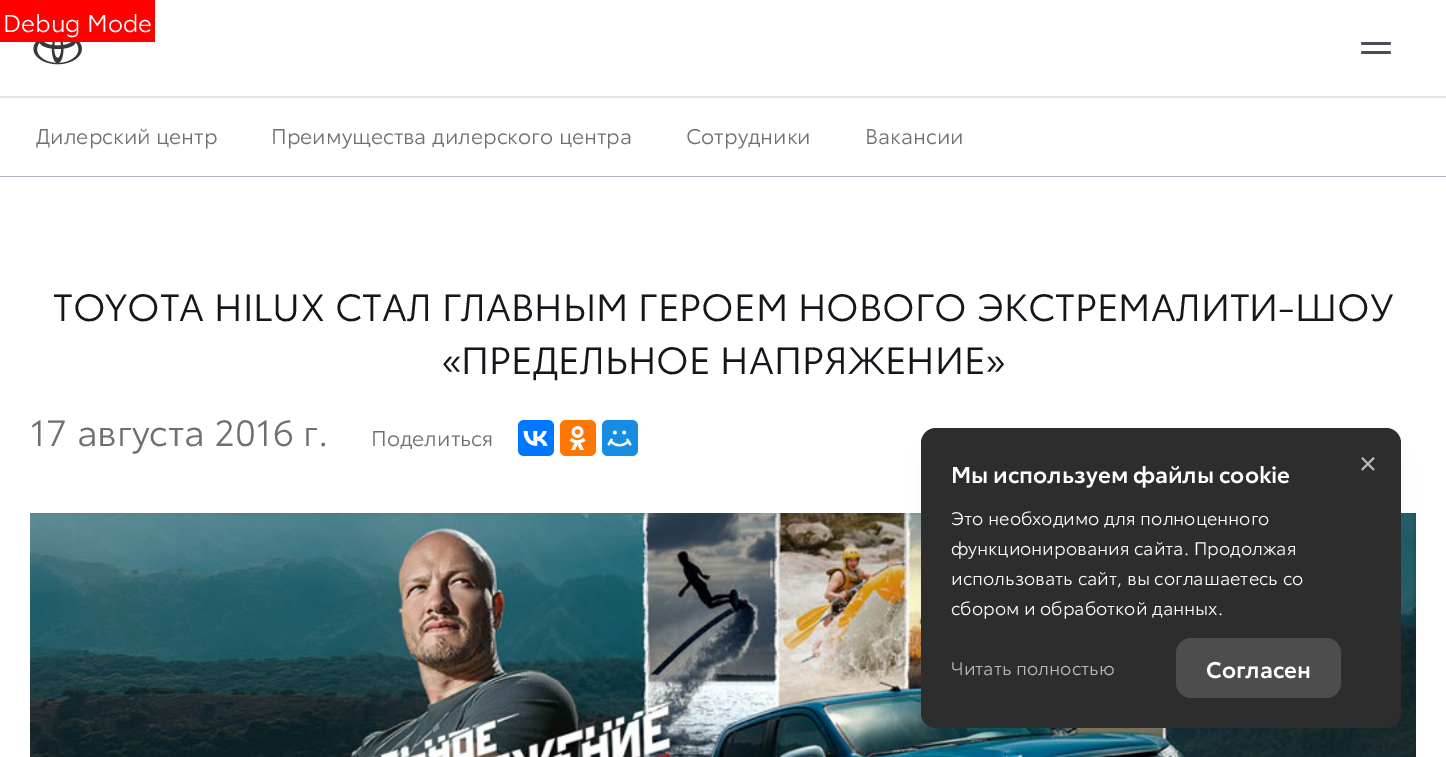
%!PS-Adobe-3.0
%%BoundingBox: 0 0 1446 757
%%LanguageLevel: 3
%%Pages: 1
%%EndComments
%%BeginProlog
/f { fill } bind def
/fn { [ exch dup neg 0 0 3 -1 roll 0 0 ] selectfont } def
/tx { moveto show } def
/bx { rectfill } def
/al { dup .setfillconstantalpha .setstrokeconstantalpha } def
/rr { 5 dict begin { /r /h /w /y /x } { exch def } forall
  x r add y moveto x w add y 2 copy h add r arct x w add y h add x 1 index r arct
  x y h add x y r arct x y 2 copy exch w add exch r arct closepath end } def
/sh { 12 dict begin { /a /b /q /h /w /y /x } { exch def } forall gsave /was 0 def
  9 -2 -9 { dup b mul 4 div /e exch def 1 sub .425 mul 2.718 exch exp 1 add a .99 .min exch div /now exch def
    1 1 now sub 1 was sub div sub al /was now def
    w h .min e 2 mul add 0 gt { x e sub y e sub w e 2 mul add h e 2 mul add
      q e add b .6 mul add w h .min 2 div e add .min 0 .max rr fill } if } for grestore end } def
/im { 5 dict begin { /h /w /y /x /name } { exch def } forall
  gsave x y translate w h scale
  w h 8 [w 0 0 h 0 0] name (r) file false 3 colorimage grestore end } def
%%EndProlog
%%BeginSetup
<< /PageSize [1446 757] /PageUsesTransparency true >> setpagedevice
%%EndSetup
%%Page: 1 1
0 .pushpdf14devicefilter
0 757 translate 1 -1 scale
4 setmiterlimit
1 setgray
0 0 1446 757 bx
1 0 0 setrgbcolor
0 0 155 42 bx
/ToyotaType-Regular 24 fn
1 setgray
(Debug Mode) 3 32 tx
0.894 setgray
0 96 1446 2 bx
(image0.raw) 33 42 49 23 im
0.29 0.29 0.349 setrgbcolor
1361 42 30 3 1.5 rr f
1361 51 30 3 1.5 rr f
0.694 0.694 0.745 setrgbcolor
0 176 1446 1 bx
/ToyotaType-Regular 21 fn
0.424 0.439 0.451 setrgbcolor
(Дилерский центр) 36 144 tx
(Преимущества дилерского центра) 271 144 tx
(Сотрудники) 686 144 tx
(Вакансии) 865 144 tx
/ToyotaType-Regular 37.5 fn
0.082 0.082 0.106 setrgbcolor
(TOYOTA HILUX СТАЛ ГЛАВНЫМ ГЕРОЕМ НОВОГО ЭКСТРЕМАЛИТИ-ШОУ) 53 321 tx
(«ПРЕДЕЛЬНОЕ НАПРЯЖЕНИЕ») 442 374 tx
/ToyotaType-Regular 36 fn
0.424 0.439 0.451 setrgbcolor
(17 августа 2016 г.) 30 446 tx
/ToyotaType-Regular 21 fn
(Поделиться) 371 446 tx
0 0.467 1 setrgbcolor
518 420 36 36 6 rr f
(image1.raw) 523 430 25 16 im
1 0.467 0 setrgbcolor
560 420 36 36 6 rr f
(image2.raw) 569 426 17 24 im
0.086 0.553 0.886 setrgbcolor
602 420 36 36 6 rr f
(image3.raw) 607 430 25 17 im
(image4.raw) 30 513 1386 244 im
0 setgray
921 450 480 300 15 15 0.04 sh
0.18 0.176 0.176 setrgbcolor
921 428 480 300 15 rr f
/ToyotaType-Regular 37.5 fn
0.733 0.725 0.725 setrgbcolor
(×) 1357 477 tx
/ToyotaType-SemiBold 22.5 fn
1 setgray
(Мы используем файлы cookie) 951 483 tx
/ToyotaType-Regular 18 fn
(Это необходимо для полноценного) 951 525 tx
(функционирования сайта. Продолжая) 951 555 tx
(использовать сайт, вы соглашаетесь со) 951 585 tx
(сбором и обработкой данных.) 951 615 tx
0.733 0.725 0.725 setrgbcolor
(Читать полностью) 951 675 tx
0.302 setgray
1176 638 165 60 15 rr f
/ToyotaType-SemiBold 22.5 fn
1 setgray
(Согласен) 1206 678 tx
.poppdf14devicefilter showpage
%%EOF
